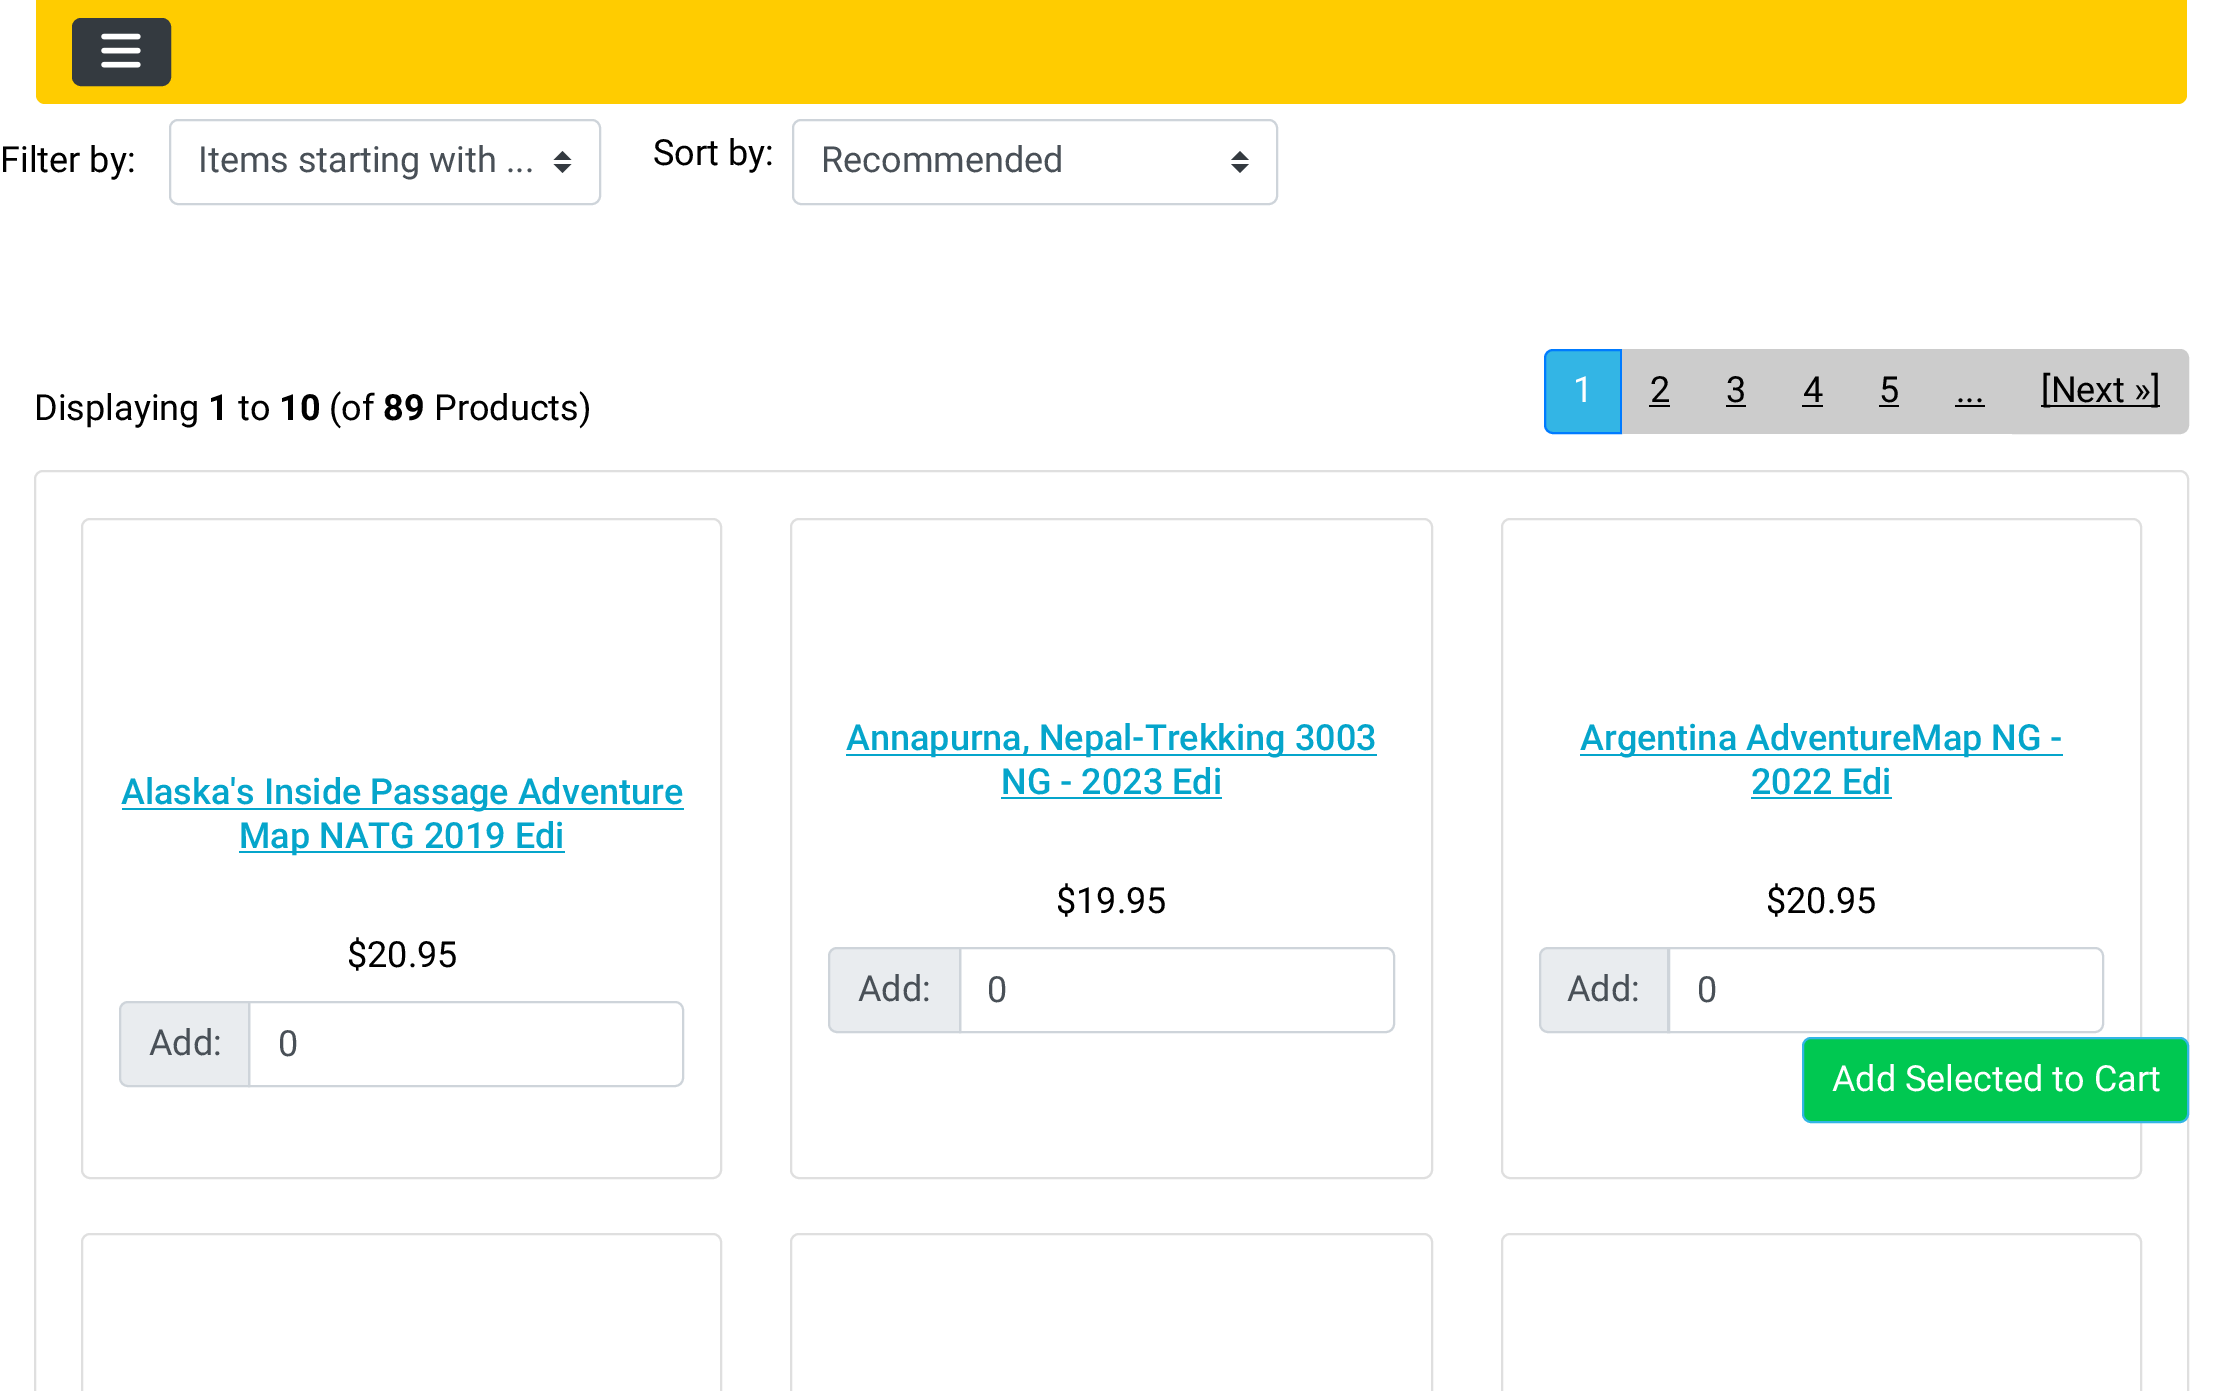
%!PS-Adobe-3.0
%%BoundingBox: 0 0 2223 1391
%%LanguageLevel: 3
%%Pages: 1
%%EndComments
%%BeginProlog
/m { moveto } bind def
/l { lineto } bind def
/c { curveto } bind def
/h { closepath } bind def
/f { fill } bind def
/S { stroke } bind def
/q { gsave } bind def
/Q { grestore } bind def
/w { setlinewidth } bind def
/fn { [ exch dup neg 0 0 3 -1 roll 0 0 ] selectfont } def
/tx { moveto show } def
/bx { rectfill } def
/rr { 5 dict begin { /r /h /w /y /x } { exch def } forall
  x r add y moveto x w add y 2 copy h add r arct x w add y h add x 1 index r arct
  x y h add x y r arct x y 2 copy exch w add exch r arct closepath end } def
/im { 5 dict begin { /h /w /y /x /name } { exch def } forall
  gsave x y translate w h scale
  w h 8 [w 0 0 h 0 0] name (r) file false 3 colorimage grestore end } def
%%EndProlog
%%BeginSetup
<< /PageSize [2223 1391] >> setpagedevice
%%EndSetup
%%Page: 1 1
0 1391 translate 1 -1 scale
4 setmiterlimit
1 setgray
0 0 2223 1391 bx
1 0.8 0 setrgbcolor
36 0 m 2187 0 l 2187 95 l 2187 100 2183 104 2178 104 c 45 104 l 40 104 36 100 36 95 c h f
0.204 0.227 0.251 setrgbcolor
73 19 97 66 8 rr q f Q
2 w
S
(image0.raw) 101 33 40 35 im
/Roboto-Regular 36 fn
0 setgray
(Filter by:) 0 172 tx
0.204 0.227 0.251 setrgbcolor
562.5 151 m 553.5 160 l 571.5 160 l h 562.5 173 m 553.5 164 l 571.5 164 l h f
0.808 0.831 0.855 setrgbcolor
170 120 430 84 8 rr S
0.286 0.314 0.341 setrgbcolor
(Items starting with ...) 198 172 tx
0 setgray
(Sort by:) 653 165 tx
0.204 0.227 0.251 setrgbcolor
1240 151 m 1231 160 l 1249 160 l h 1240 173 m 1231 164 l 1249 164 l h f
0.808 0.831 0.855 setrgbcolor
793 120 484 84 8 rr S
0.286 0.314 0.341 setrgbcolor
(Recommended) 821 172 tx
0 setgray
(Displaying) 34 420 tx
/Roboto-Bold 36 fn
(1) 208 420 tx
/Roboto-Regular 36 fn
(to) 238 420 tx
/Roboto-Bold 36 fn
(10) 279 420 tx
/Roboto-Regular 36 fn
(\(of) 329 420 tx
/Roboto-Bold 36 fn
(89) 383 420 tx
/Roboto-Regular 36 fn
(Products\)) 434 420 tx
0.2 0.71 0.898 setrgbcolor
1553 350 m 1621 350 l 1621 433 l 1553 433 l 1548.5 433 1545 429.5 1545 425 c 1545 358 l 1545 353.5 1548.5 350 1553 350 c h q f Q
0 0.482 1 setrgbcolor
S
1 setgray
(1) 1573 402 tx
0.8 setgray
1622 349 390 85 bx
0 setgray
(2) 1650 402 tx
1649 405 21 2 bx
(3) 1726 402 tx
1726 405 20 2 bx
(4) 1803 402 tx
1802 405 21 2 bx
(5) 1879 402 tx
1879 405 20 2 bx
(...) 1956 402 tx
1955 405 30 2 bx
0.8 setgray
2013 350 m 2180 350 l 2184.5 350 2188 353.5 2188 358 c 2188 425 l 2188 429.5 2184.5 433 2180 433 c 2013 433 l h q f Q
S
0 setgray
2041 405 119 2 bx
([Next »]) 2041 402 tx
0.875 setgray
35 471 2153 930 8 rr S
82 519 639 659 8 rr S
0.02 0.647 0.796 setrgbcolor
122 808 562 2 bx
/Roboto-Medium 36 fn
(Alaska's Inside Passage Adventure) 121 804 tx
239 851 326 2 bx
(Map NATG 2019 Edi) 239 848 tx
/Roboto-Regular 36 fn
0 setgray
($20.95) 347 967 tx
0.914 0.925 0.937 setrgbcolor
128 1002 m 249 1002 l 249 1086 l 128 1086 l 123.5 1086 120 1082.5 120 1078 c 120 1010 l 120 1005.5 123.5 1002 128 1002 c h q f Q
0.808 0.831 0.855 setrgbcolor
S
0.286 0.314 0.341 setrgbcolor
(Add:) 149 1055 tx
0.808 0.831 0.855 setrgbcolor
249 1002 m 675 1002 l 679.5 1002 683 1005.5 683 1010 c 683 1078 l 683 1082.5 679.5 1086 675 1086 c 249 1086 l h S
0.286 0.314 0.341 setrgbcolor
(0) 278 1056 tx
0.875 setgray
791 519 641 659 8 rr S
0.02 0.647 0.796 setrgbcolor
846 754 531 2 bx
/Roboto-Medium 36 fn
(Annapurna, Nepal-Trekking 3003) 846 750 tx
(NG - 2023 Edi) 1001 794 tx
1001 797 221 2 bx
/Roboto-Regular 36 fn
0 setgray
($19.95) 1056 913 tx
0.914 0.925 0.937 setrgbcolor
837 948 m 960 948 l 960 1032 l 837 1032 l 832.5 1032 829 1028.5 829 1024 c 829 956 l 829 951.5 832.5 948 837 948 c h q f Q
0.808 0.831 0.855 setrgbcolor
S
0.286 0.314 0.341 setrgbcolor
(Add:) 858 1001 tx
0.808 0.831 0.855 setrgbcolor
960 948 m 1386 948 l 1390.5 948 1394 951.5 1394 956 c 1394 1024 l 1394 1028.5 1390.5 1032 1386 1032 c 960 1032 l h S
0.286 0.314 0.341 setrgbcolor
(0) 987 1002 tx
0.875 setgray
1502 519 639 659 8 rr S
0.02 0.647 0.796 setrgbcolor
1580 754 483 2 bx
/Roboto-Medium 36 fn
(Argentina AdventureMap NG -) 1580 750 tx
(2022 Edi) 1751 794 tx
1751 797 141 2 bx
/Roboto-Regular 36 fn
0 setgray
($20.95) 1766 913 tx
0.914 0.925 0.937 setrgbcolor
1548 948 m 1669 948 l 1669 1032 l 1548 1032 l 1543.5 1032 1540 1028.5 1540 1024 c 1540 956 l 1540 951.5 1543.5 948 1548 948 c h q f Q
0.808 0.831 0.855 setrgbcolor
S
0.286 0.314 0.341 setrgbcolor
(Add:) 1567 1001 tx
0.808 0.831 0.855 setrgbcolor
1668 948 m 2095 948 l 2099.5 948 2103 951.5 2103 956 c 2103 1024 l 2103 1028.5 2099.5 1032 2095 1032 c 1668 1032 l h S
0.286 0.314 0.341 setrgbcolor
(0) 1697 1002 tx
0.875 setgray
82 1234 639 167 8 rr S
791 1234 641 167 8 rr S
1502 1234 639 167 8 rr S
0 0.784 0.318 setrgbcolor
1803 1038 385 84 8 rr q f Q
0.2 0.71 0.898 setrgbcolor
S
1 setgray
(Add Selected to Cart) 1832 1091 tx
showpage
%%EOF
